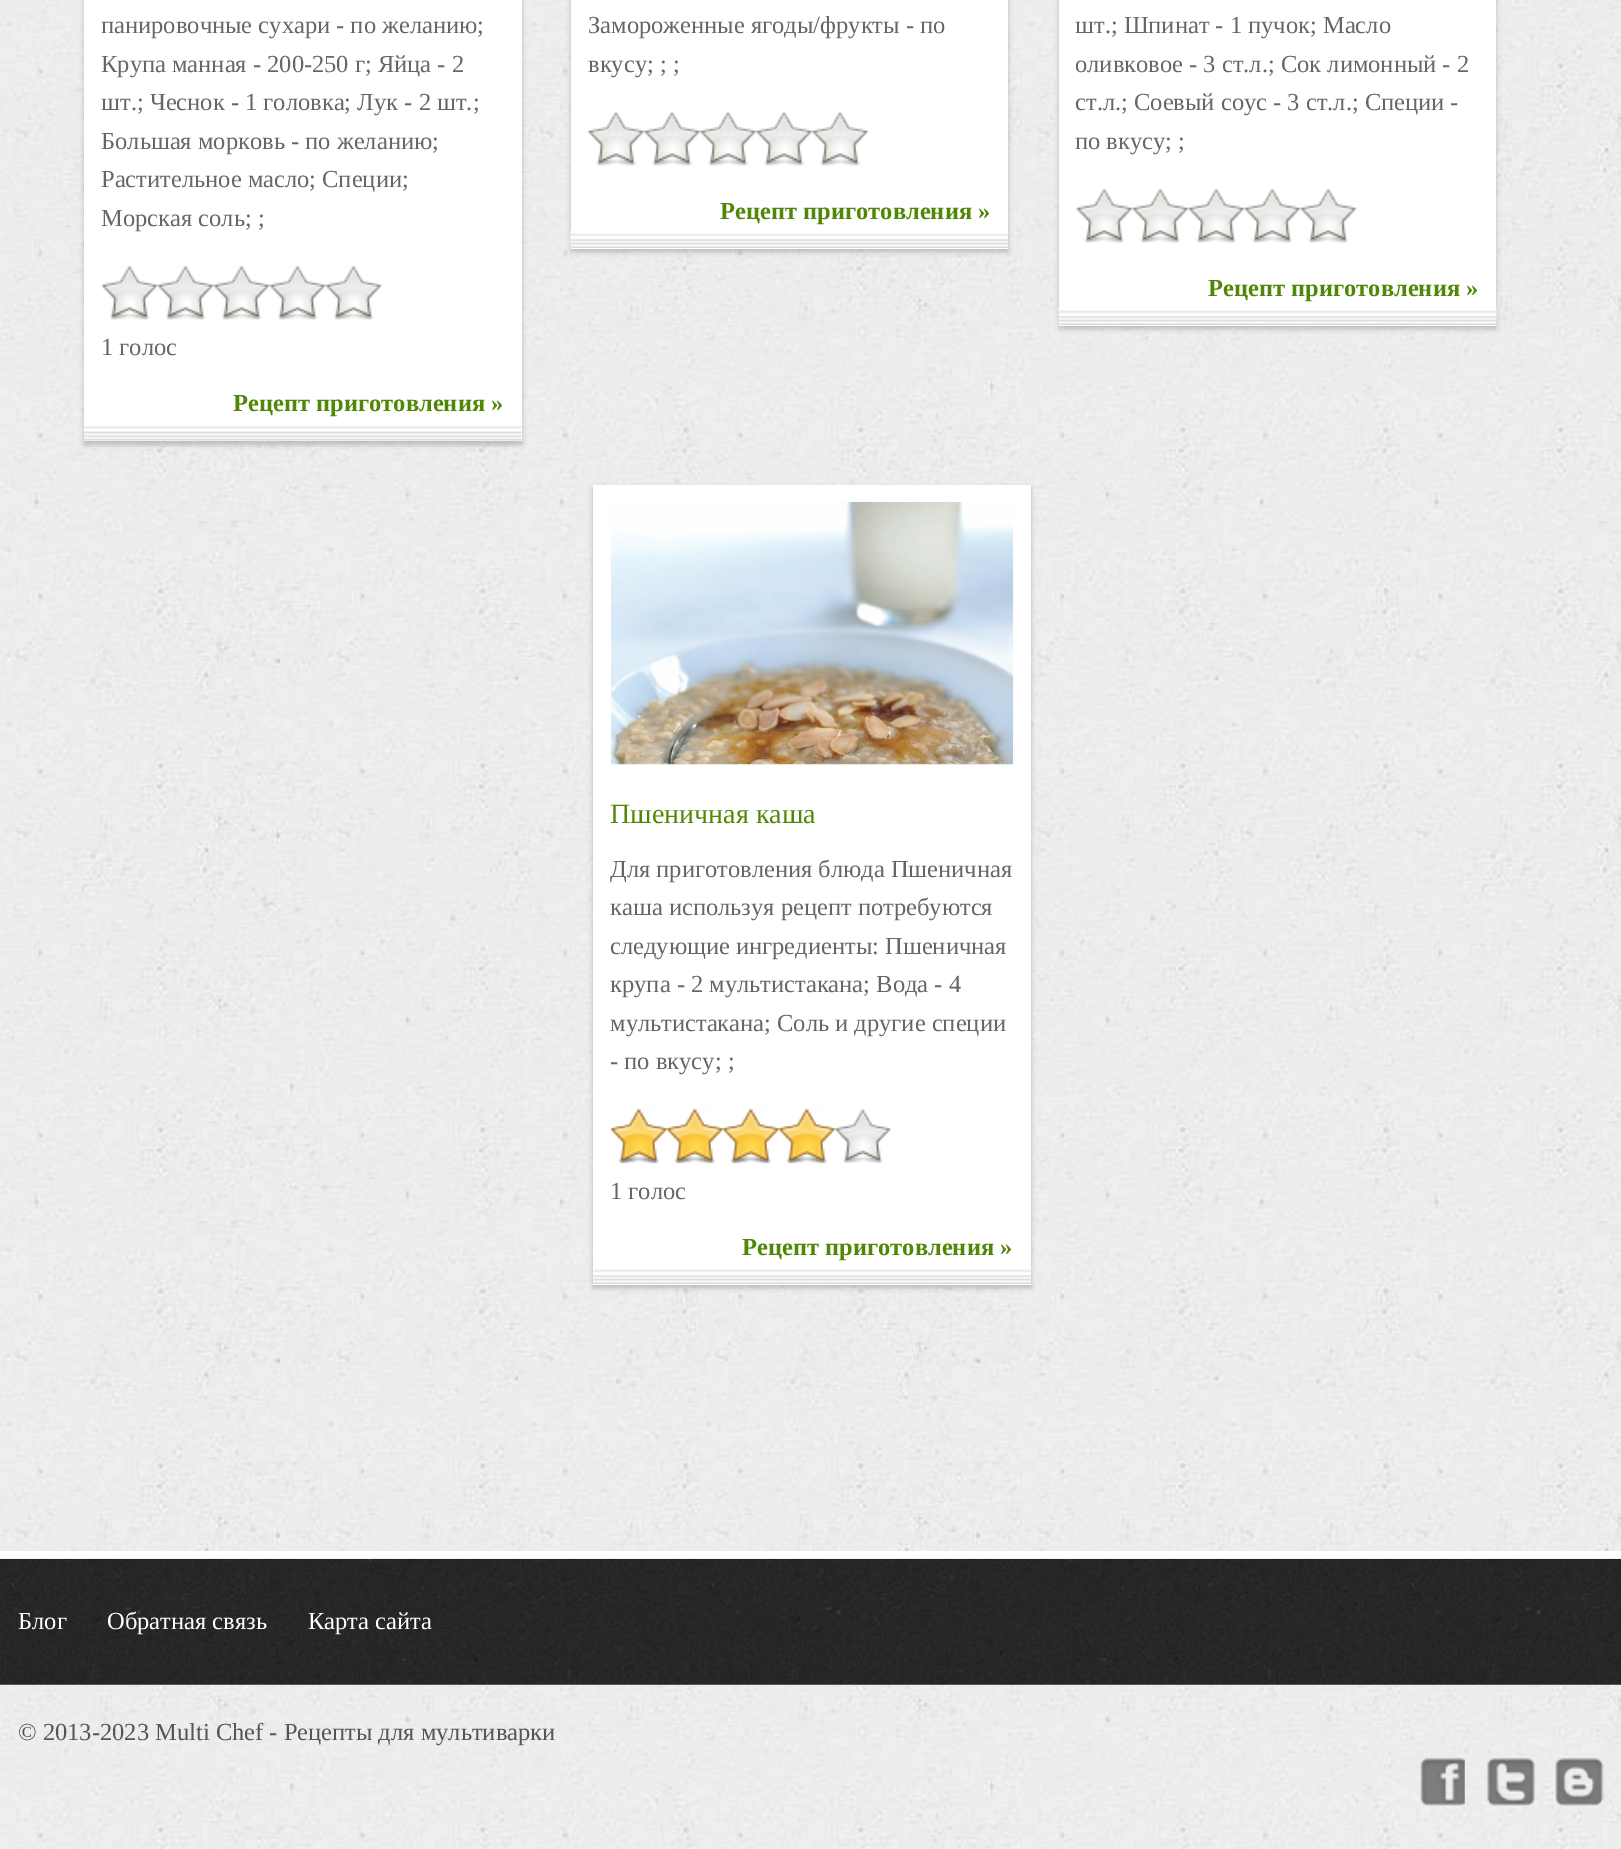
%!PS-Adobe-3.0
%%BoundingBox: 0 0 1621 1849
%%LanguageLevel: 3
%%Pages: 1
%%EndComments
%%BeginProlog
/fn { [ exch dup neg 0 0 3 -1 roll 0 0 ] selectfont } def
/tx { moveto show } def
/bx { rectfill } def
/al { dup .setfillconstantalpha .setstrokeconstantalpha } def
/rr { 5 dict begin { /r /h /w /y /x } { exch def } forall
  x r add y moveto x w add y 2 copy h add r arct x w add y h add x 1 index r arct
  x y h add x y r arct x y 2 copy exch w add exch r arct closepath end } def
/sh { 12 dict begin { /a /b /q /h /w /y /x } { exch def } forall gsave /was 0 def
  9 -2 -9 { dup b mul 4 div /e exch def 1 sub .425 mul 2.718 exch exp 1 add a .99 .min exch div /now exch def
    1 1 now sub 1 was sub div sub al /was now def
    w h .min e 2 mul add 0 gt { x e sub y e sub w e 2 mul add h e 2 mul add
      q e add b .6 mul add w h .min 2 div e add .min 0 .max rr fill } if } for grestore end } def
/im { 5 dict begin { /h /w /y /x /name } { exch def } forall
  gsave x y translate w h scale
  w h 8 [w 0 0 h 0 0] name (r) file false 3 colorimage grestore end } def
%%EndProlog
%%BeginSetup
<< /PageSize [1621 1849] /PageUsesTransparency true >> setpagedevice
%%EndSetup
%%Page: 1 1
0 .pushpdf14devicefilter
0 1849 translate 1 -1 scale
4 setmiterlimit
1 setgray
0 0 1621 1849 bx
(image0.raw) 0 0 1621 1849 im
0 setgray
84 -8 438 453 0 2.5 0.2 sh
1 setgray
84 0 438 441 bx
(image1.raw) 84 426 438 15 im
/LiberationSerif-Regular 24.5 fn
0.4 setgray
(панировочные сухари - по желанию;) 101 33 tx
(Крупа манная - 200-250 г; Яйца - 2) 101 72 tx
(шт.; Чеснок - 1 головка; Лук - 2 шт.;) 101 110 tx
(Большая морковь - по желанию;) 101 149 tx
(Растительное масло; Специи;) 101 187 tx
(Морская соль; ;) 101 226 tx
(image2.raw) 101 265 281 55 im
(1 голос) 101 355 tx
/LiberationSerif-Bold 24.5 fn
0.314 0.529 0.024 setrgbcolor
(Рецепт приготовления ») 233 411 tx
0 setgray
571 -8 437 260 0 2.5 0.2 sh
1 setgray
571 0 437 249 bx
(image3.raw) 570 230 438 18 im
/LiberationSerif-Regular 24.5 fn
0.4 setgray
(Замороженные ягоды/фрукты - по) 588 33 tx
(вкусу; ; ;) 588 72 tx
(image4.raw) 588 111 280 55 im
/LiberationSerif-Bold 24.5 fn
0.314 0.529 0.024 setrgbcolor
(Рецепт приготовления ») 720 219 tx
0 setgray
1059 -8 437 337 0 2.5 0.2 sh
1 setgray
1059 0 437 326 bx
(image5.raw) 1058 307 439 18 im
/LiberationSerif-Regular 24.5 fn
0.4 setgray
(шт.; Шпинат - 1 пучок; Масло) 1075 33 tx
(оливковое - 3 ст.л.; Сок лимонный - 2) 1075 72 tx
(ст.л.; Соевый соус - 3 ст.л.; Специи -) 1075 110 tx
(по вкусу; ;) 1075 149 tx
(image6.raw) 1076 188 281 55 im
/LiberationSerif-Bold 24.5 fn
0.314 0.529 0.024 setrgbcolor
(Рецепт приготовления ») 1208 296 tx
0 setgray
593 488 438 800 0 2.5 0.2 sh
1 setgray
593 485 438 800 bx
(image7.raw) 593 1269 438 15 im
(image8.raw) 611 501 403 264 im
/LiberationSerif-Regular 28 fn
0.314 0.529 0.024 setrgbcolor
(Пшеничная каша) 610 823 tx
/LiberationSerif-Regular 24.5 fn
0.4 setgray
(Для приготовления блюда Пшеничная) 610 877 tx
(каша используя рецепт потребуются) 610 915 tx
(следующие ингредиенты: Пшеничная) 610 954 tx
(крупа - 2 мультистакана; Вода - 4) 610 992 tx
(мультистакана; Соль и другие специи) 610 1031 tx
(- по вкусу; ;) 610 1069 tx
(image10.raw) 610 1108 281 55 im
(image9.raw) 610 1107 225 57 im
(1 голос) 610 1199 tx
/LiberationSerif-Bold 24.5 fn
0.314 0.529 0.024 setrgbcolor
(Рецепт приготовления ») 742 1255 tx
1 setgray
0 1551 1621 8 bx
(image11.raw) 0 1558 1621 127 im
/LiberationSerif-Regular 24.5 fn
(Блог) 18 1629 tx
(Обратная связь) 107 1629 tx
(Карта сайта) 308 1629 tx
0.333 setgray
(© 2013-2023 Multi Chef - Рецепты для мультиварки) 18 1740 tx
(image12.raw) 1420 1758 45 49 im
(image13.raw) 1487 1758 48 49 im
(image14.raw) 1555 1758 49 49 im
.poppdf14devicefilter showpage
%%EOF
